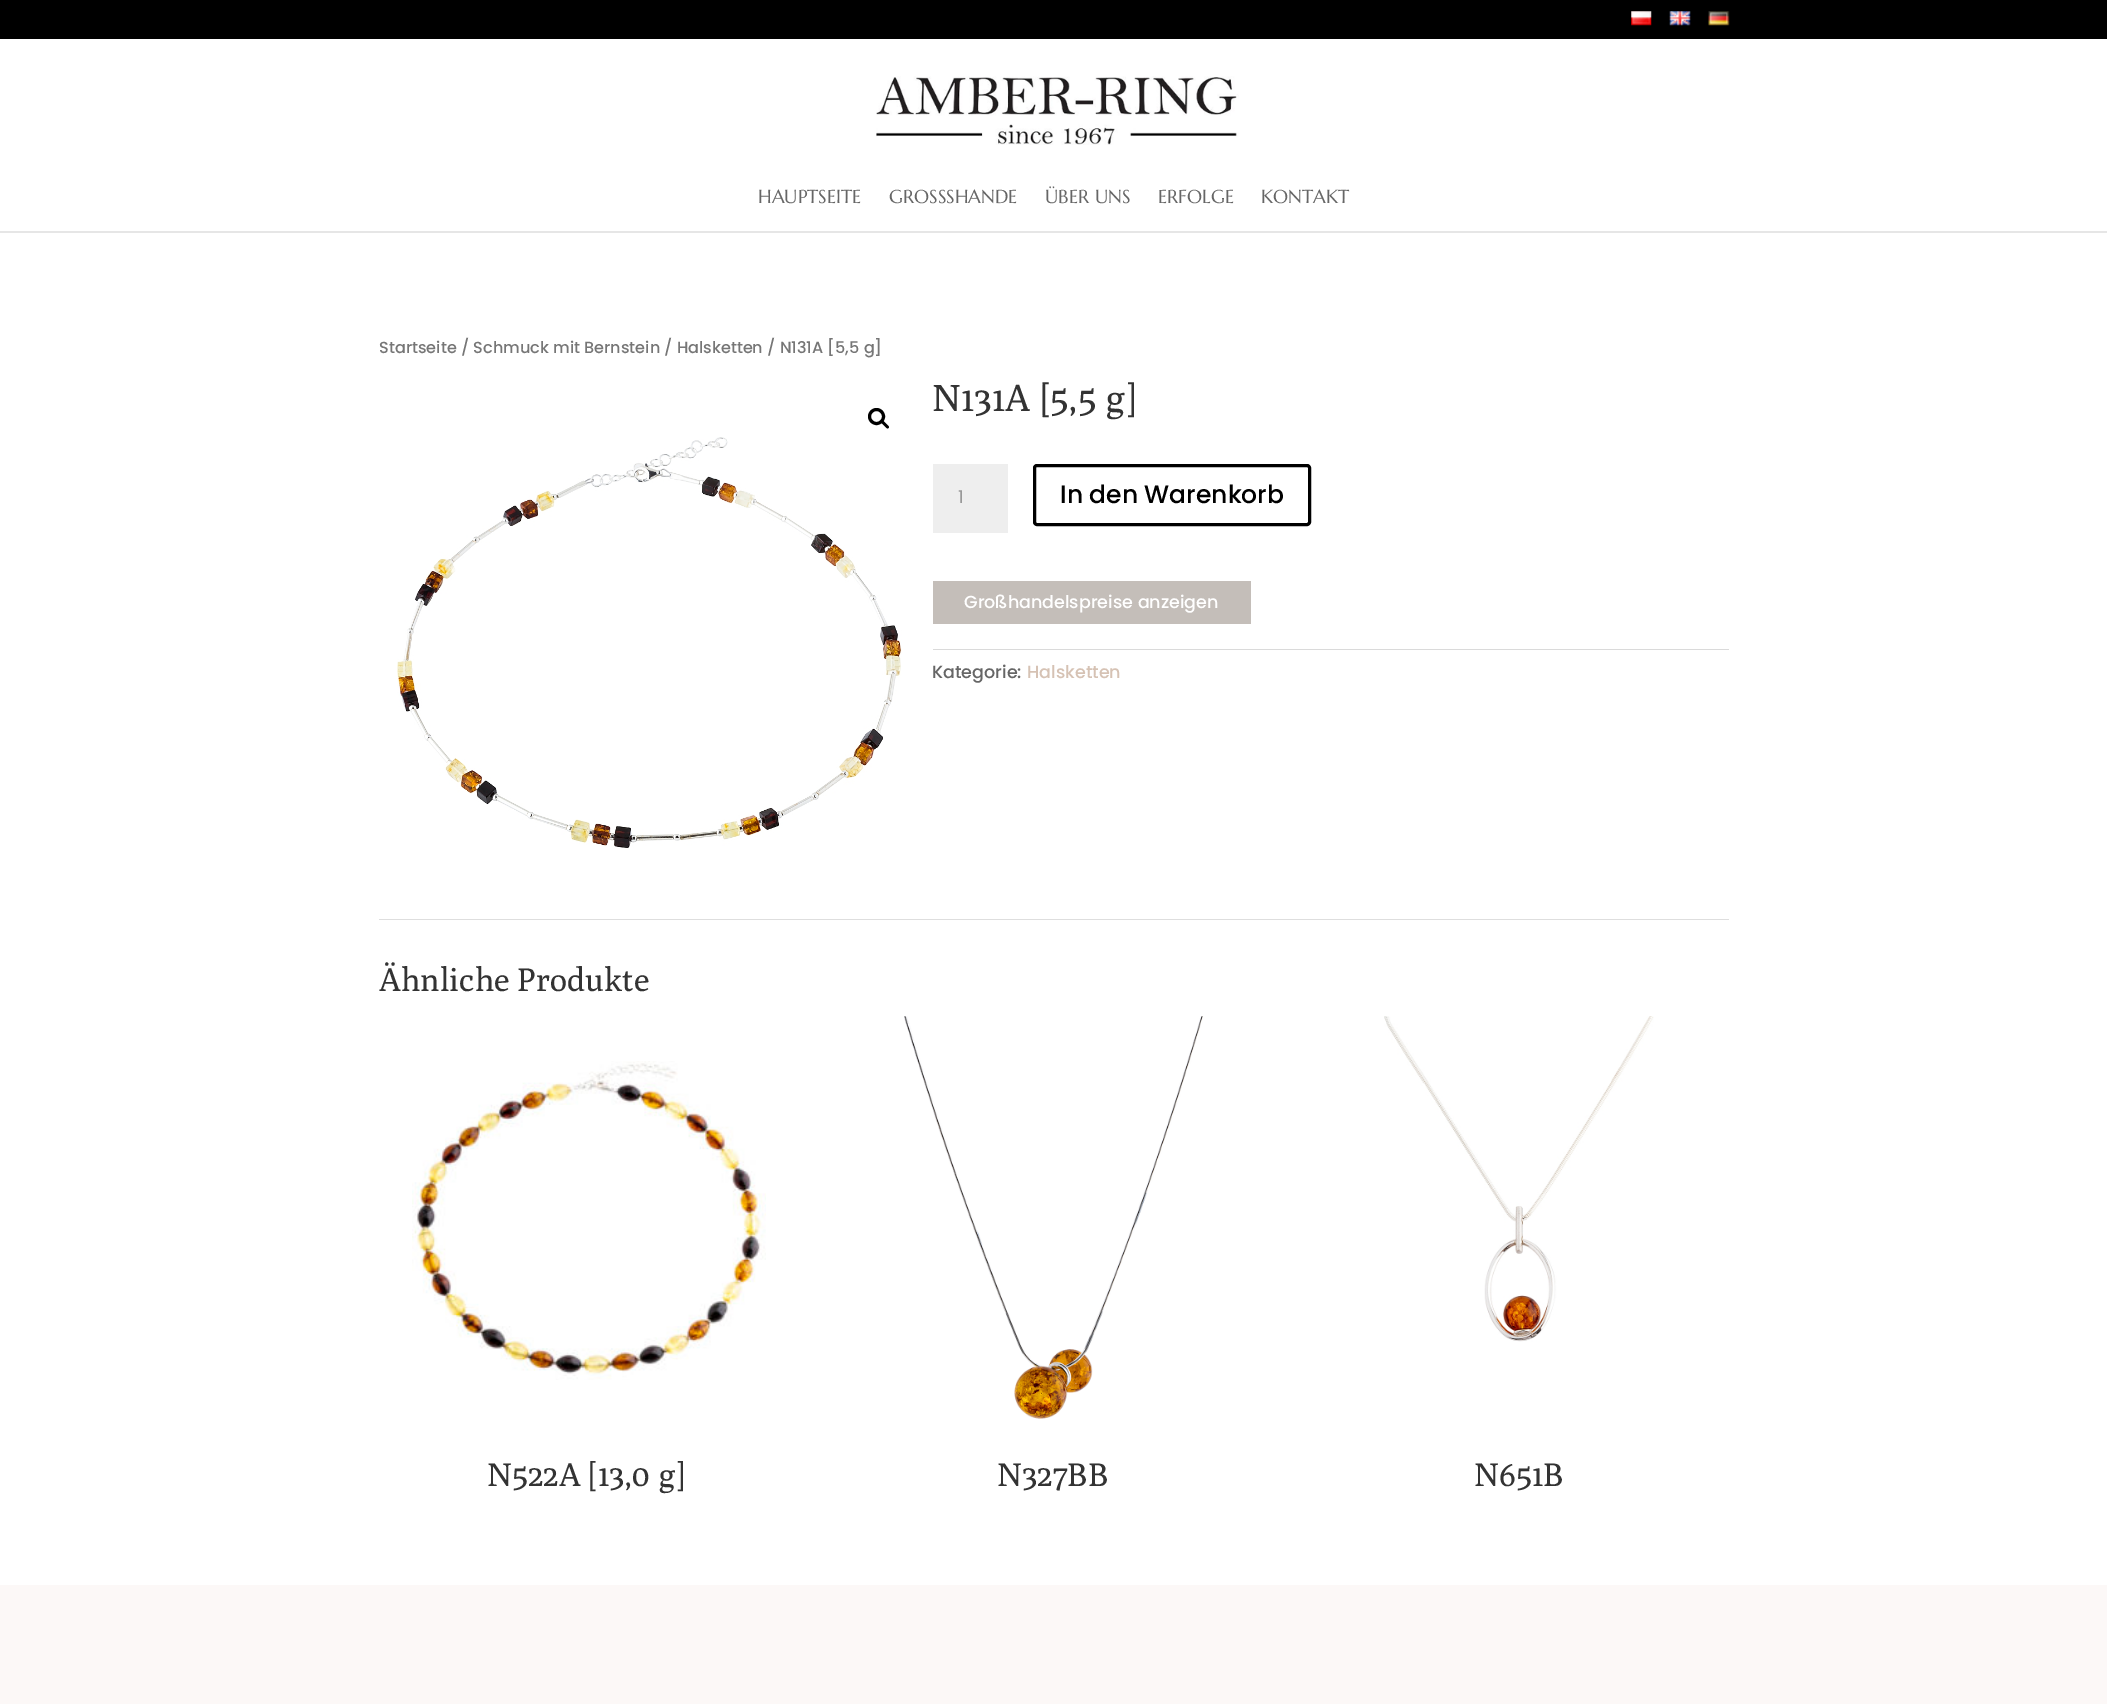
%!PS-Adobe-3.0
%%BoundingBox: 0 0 2107 1704
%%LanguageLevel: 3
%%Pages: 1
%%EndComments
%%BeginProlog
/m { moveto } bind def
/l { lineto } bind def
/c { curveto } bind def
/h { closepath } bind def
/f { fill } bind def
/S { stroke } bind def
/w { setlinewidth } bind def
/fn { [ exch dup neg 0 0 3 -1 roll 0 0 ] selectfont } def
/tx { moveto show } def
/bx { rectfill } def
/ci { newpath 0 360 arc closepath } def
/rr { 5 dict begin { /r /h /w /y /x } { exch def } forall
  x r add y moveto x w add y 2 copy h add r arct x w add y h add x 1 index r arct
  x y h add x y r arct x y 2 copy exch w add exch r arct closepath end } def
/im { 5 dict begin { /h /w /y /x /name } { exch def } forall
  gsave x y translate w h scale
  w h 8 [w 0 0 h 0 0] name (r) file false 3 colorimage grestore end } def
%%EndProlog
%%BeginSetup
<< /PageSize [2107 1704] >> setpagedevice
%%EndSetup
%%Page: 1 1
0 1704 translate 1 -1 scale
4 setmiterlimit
1 setgray
0 0 2107 1704 bx
0 setgray
0 0 2107 39 bx
(image0.raw) 1631 11 21 15 im
(image1.raw) 1669 11 22 15 im
(image2.raw) 1708 11 22 15 im
0.902 setgray
0 231 m 0 233 l 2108 233 l 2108 40 l 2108 231 l h f
(image3.raw) 876 76 363 69 im
/Marcellus-Regular 18.75 fn
0.4 setgray
(HAUPTSEITE) 758 203 tx
(GROSSSHANDE) 889 203 tx
(ÜBER UNS) 1045 203 tx
(ERFOLGE) 1158 203 tx
(KONTAKT) 1261 203 tx
/Poppins-Medium 16.1 fn
0.463 setgray
(Startseite / Schmuck mit Bernstein / Halsketten / N131A [5,5 g]) 379 353 tx
0 setgray
3 w
876.5 416.5 7 ci S
881.5 421 m 883 419.5 885 423 886 423.5 c 886.5 424.5 890 426.5 888.5 428 c 887 429.5 885 426 884 425.5 c 883.5 424.5 880 422.5 881.5 421 c h f
(image4.raw) 397 437 505 411 im
/Poly-Regular 37.5 fn
0.2 setgray
(N131A [5,5 g]) 932 411 tx
0.933 setgray
933 464 75 69 bx
/Poppins-Regular 17.5 fn
0.6 setgray
(1) 958 503 tx
0 setgray
1034.5 465.5 275 59 2.5 rr S
/Poppins-Medium 25 fn
(In den Warenkorb) 1060 503 tx
0.769 0.745 0.725 setrgbcolor
933 581 318 43 bx
/Poppins-Medium 17.5 fn
1 setgray
(Großhandelspreise anzeigen) 964 608 tx
0.855 setgray
933 649 796 1 bx
0.4 setgray
(Kategorie:) 932 678 tx
0.839 0.761 0.706 setrgbcolor
(Halsketten) 1027 678 tx
0.871 setgray
379 919 1350 1 bx
/Poly-Regular 32.5 fn
0.2 setgray
(Ähnliche Produkte) 379 991 tx
(image5.raw) 412 1061 354 319 im
(N522A [13,0 g]) 487 1486 tx
(image6.raw) 904 1016 299 403 im
(N327BB) 997 1486 tx
(image7.raw) 1384 1016 270 326 im
(N651B) 1474 1486 tx
0.988 0.973 0.969 setrgbcolor
0 1585 2107 119 bx
showpage
%%EOF
